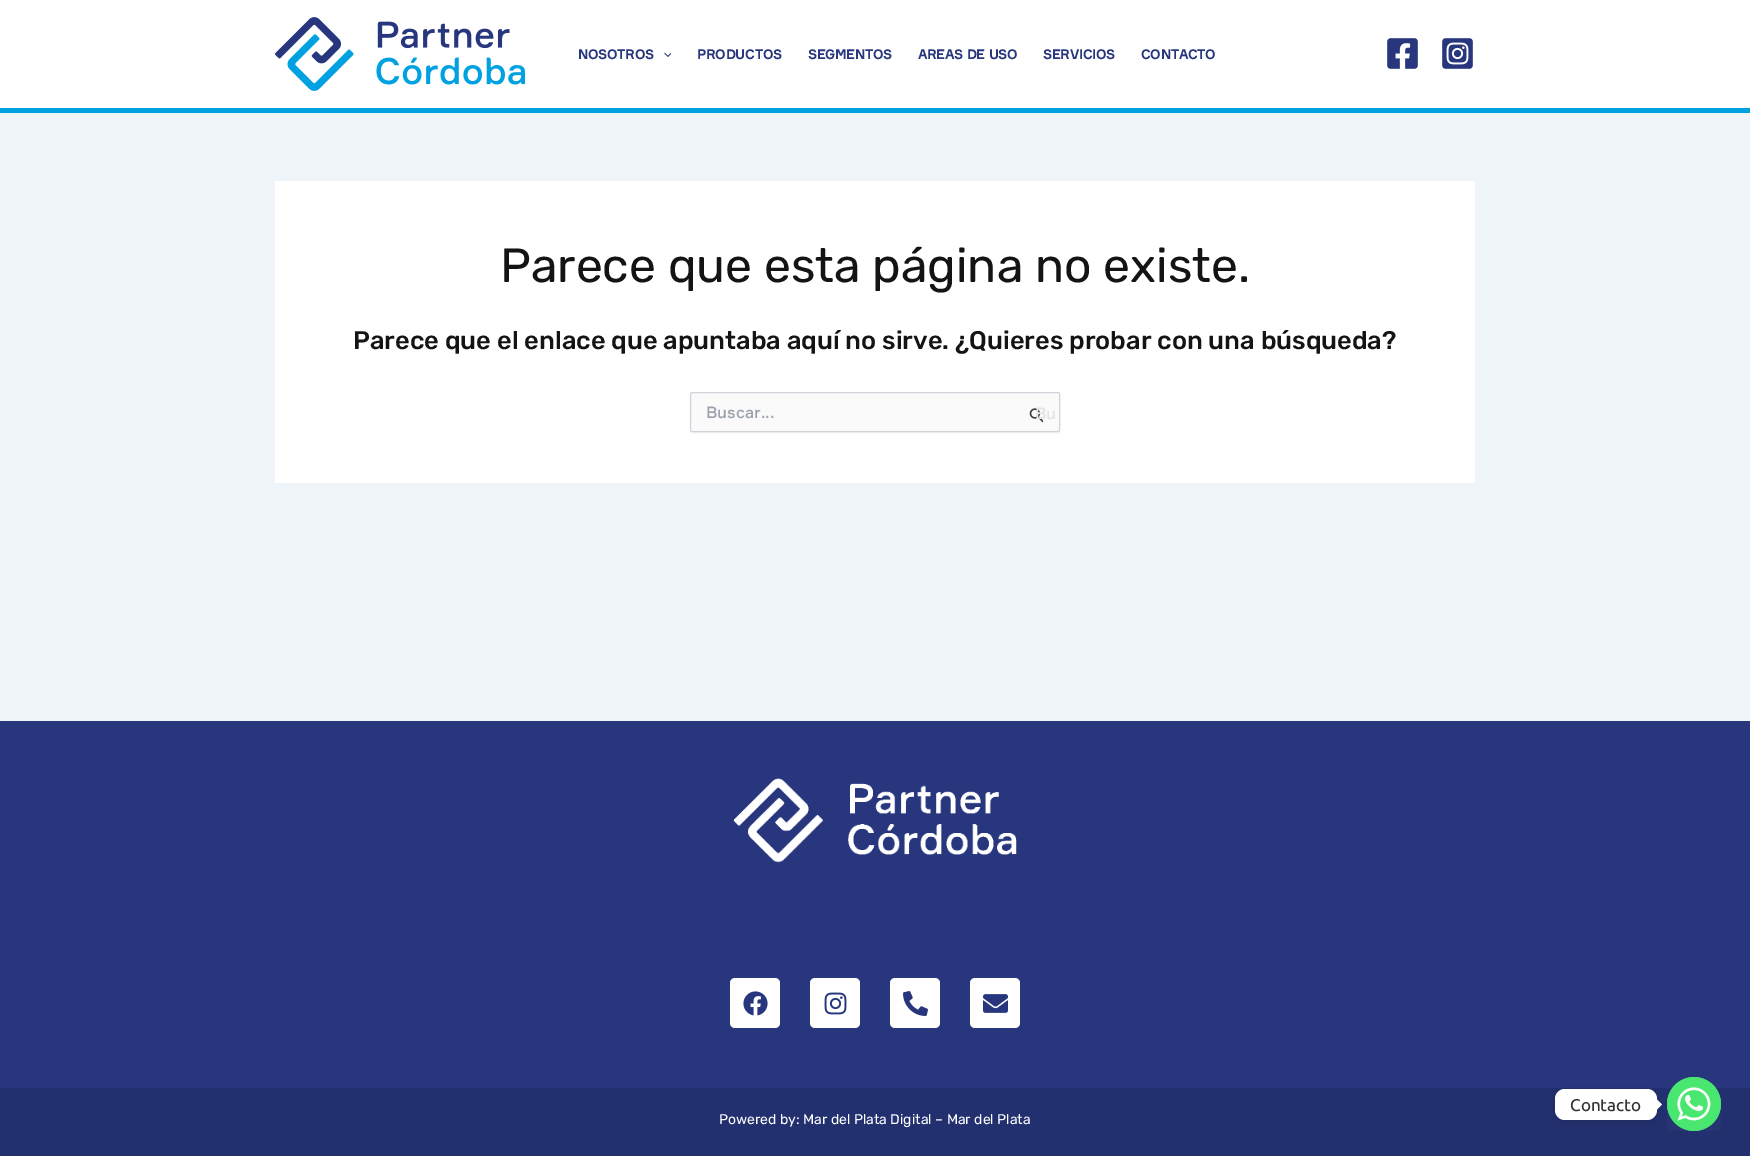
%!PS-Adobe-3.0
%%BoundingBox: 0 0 1750 1156
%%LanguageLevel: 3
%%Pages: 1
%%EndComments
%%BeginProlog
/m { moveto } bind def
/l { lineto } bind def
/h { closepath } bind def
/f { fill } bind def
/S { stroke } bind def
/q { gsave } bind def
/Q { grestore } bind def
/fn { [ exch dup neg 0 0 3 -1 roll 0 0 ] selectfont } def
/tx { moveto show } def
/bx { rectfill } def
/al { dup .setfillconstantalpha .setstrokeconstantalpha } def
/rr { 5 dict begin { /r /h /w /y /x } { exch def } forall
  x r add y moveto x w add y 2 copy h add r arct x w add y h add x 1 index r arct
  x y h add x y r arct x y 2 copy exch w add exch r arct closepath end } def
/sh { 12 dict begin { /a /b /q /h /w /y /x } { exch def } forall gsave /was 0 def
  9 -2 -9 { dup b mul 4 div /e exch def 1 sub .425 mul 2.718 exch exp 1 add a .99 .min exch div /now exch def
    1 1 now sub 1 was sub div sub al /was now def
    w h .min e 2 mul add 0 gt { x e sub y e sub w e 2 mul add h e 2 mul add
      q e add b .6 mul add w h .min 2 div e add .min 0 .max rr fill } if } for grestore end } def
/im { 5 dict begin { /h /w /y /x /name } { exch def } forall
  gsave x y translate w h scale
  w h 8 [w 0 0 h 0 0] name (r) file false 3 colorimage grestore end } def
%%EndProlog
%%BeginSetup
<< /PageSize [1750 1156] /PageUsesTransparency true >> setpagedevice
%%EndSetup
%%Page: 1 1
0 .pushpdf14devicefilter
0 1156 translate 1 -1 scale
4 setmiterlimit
0.941 0.961 0.98 setrgbcolor
0 0 1750 1156 bx
1 setgray
0 0 1750 108 bx
0 0.631 0.878 setrgbcolor
0 108 1750 5 bx
(image0.raw) 275 17 250 74 im
/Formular-Bold 13 fn
0.157 0.212 0.494 setrgbcolor
(NOSOTROS) 578 59 tx
(image1.raw) 664 52 7 5 im
(PRODUCTOS) 697 59 tx
(SEGMENTOS) 808 59 tx
(AREAS DE USO) 918 59 tx
(SERVICIOS) 1043 59 tx
(CONTACTO) 1141 59 tx
(image2.raw) 1387 38 31 31 im
(image3.raw) 1442 38 31 31 im
1 setgray
275 181 1200 302 bx
/Rubik-Regular 48 fn
0.078 setgray
(Parece que esta página no existe.) 500 282 tx
/Rubik-Medium 25.5 fn
(Parece que el enlace que apuntaba aquí no sirve. ¿Quieres probar con una búsqueda?) 353 349 tx
0 setgray
690 393 370 40 2 1 0.05 sh
0.98 setgray
690.5 392.5 369 39 1.5 rr q f Q
0.82 0.835 0.859 setrgbcolor
S
/Formular-Medium 16 fn
0.612 0.639 0.686 setrgbcolor
(Buscar...) 706 418 tx
(image4.raw) 1029 408 14 15 im
0.89 setgray
(Bu) 1035 419 tx
0.157 0.212 0.494 setrgbcolor
0 721 1750 367 bx
(image5.raw) 733 778 284 85 im
1 setgray
730 978 50 50 5 rr f
(image6.raw) 743 991 25 25 im
810 978 50 50 5 rr f
(image7.raw) 824 992 23 23 im
890 978 50 50 5 rr f
(image8.raw) 903 991 25 25 im
970 978 50 50 5 rr f
(image9.raw) 983 994 25 19 im
0.137 0.188 0.435 setrgbcolor
0 1088 1750 68 bx
/Rubik-Regular 14 fn
1 setgray
(Powered by: Mar del Plata Digital – Mar del Plata) 719 1124 tx
(image10.raw) 1667 1077 54 54 im
0 setgray
1555 1090 102 31 10 4 0.15 sh
1 setgray
1555 1089 102 31 10 rr f
/Ubuntu-Medium 17 fn
0.2 setgray
(Contacto) 1570 1111 tx
1 setgray
1657 1109.5 m 1657 1099.5 l 1662 1104.5 l h f
.poppdf14devicefilter showpage
%%EOF
